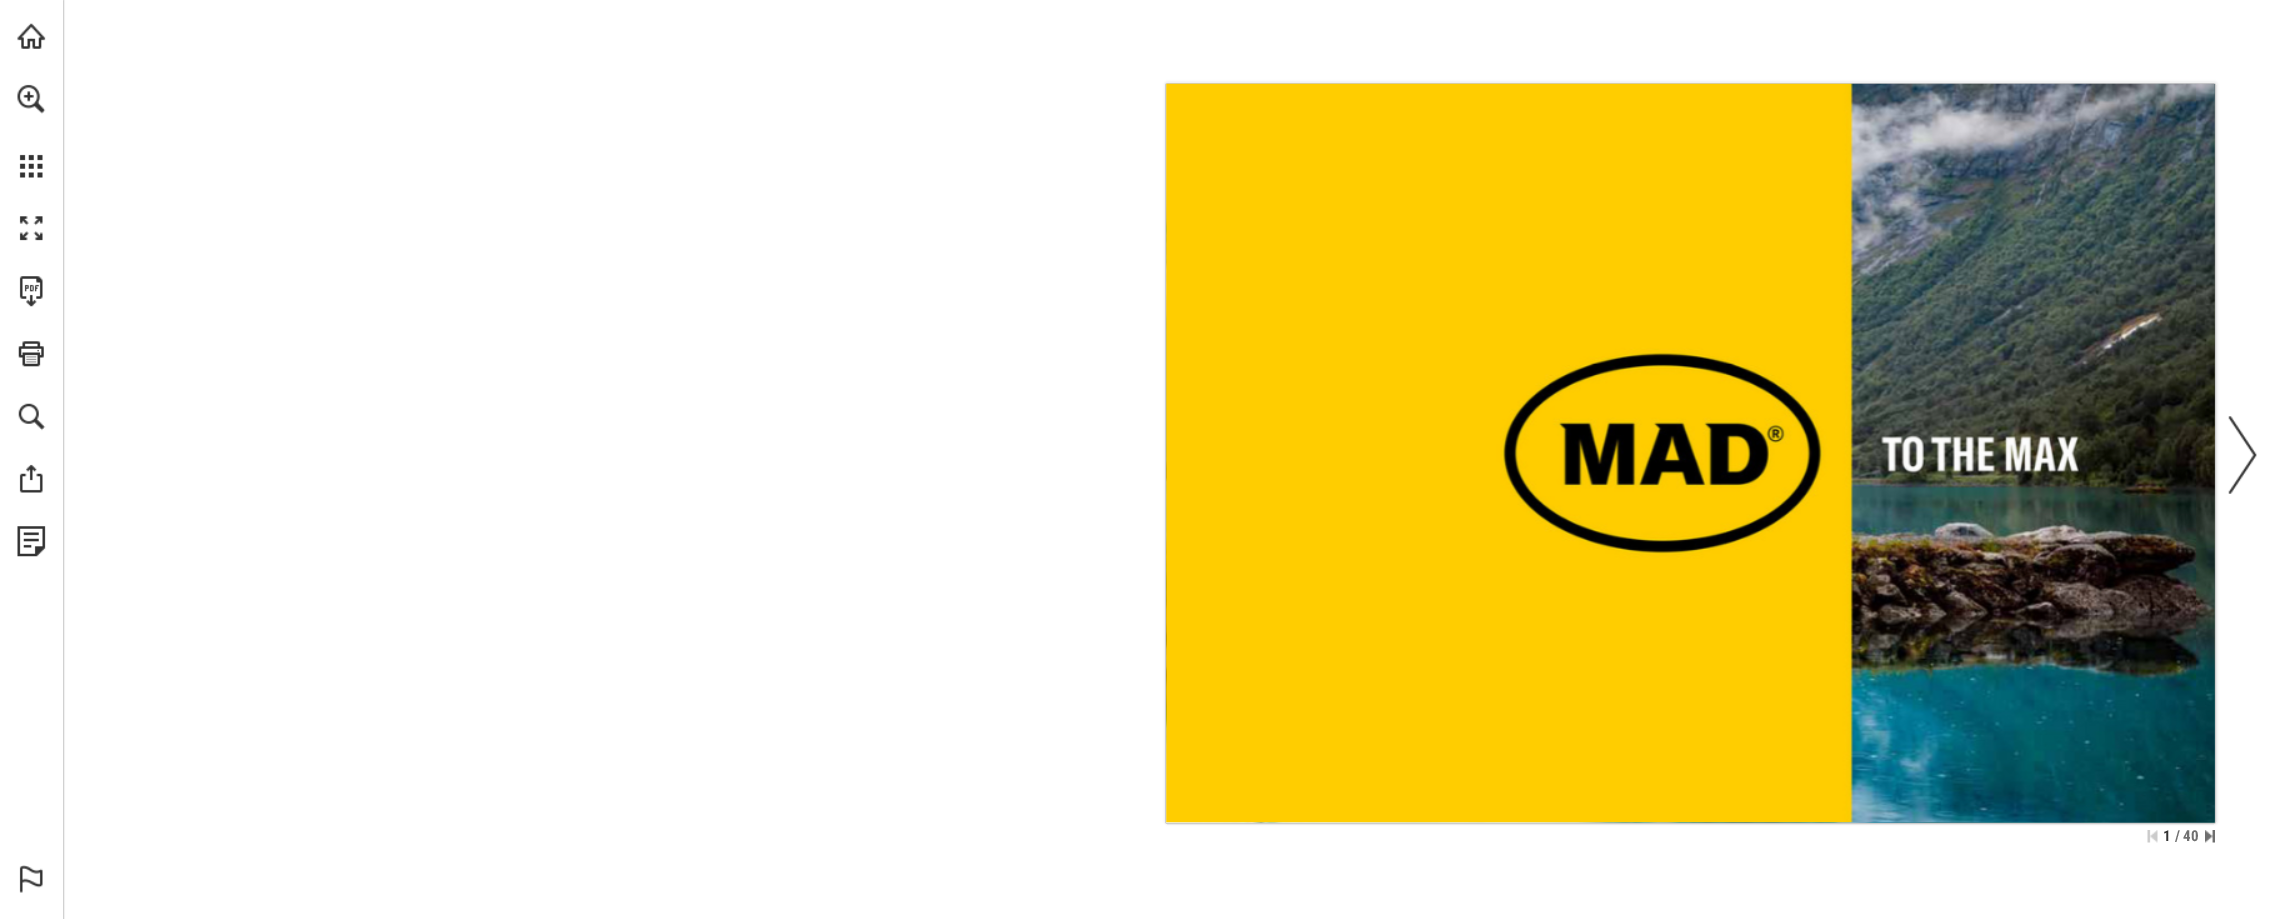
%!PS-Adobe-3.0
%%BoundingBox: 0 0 2270 919
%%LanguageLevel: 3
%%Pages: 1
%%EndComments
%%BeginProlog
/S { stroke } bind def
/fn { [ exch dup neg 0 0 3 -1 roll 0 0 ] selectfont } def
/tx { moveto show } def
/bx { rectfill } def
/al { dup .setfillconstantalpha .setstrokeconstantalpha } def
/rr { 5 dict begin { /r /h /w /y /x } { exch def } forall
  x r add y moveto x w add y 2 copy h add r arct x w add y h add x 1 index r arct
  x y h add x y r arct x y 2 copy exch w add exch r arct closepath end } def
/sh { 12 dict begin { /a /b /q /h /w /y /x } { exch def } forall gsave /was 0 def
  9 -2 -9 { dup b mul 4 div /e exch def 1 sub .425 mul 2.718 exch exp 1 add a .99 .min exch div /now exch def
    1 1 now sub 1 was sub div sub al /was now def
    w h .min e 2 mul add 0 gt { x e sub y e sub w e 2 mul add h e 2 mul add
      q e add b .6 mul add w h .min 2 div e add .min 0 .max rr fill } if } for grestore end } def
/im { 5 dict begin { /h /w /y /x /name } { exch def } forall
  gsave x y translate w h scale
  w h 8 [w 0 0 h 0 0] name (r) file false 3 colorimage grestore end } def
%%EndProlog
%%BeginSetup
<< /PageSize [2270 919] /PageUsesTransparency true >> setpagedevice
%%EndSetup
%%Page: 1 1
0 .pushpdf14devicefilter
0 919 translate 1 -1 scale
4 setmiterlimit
1 setgray
0 0 2270 919 bx
0 setgray
1 0 63 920 0 0.5 0.2 sh
1 setgray
0 0 63 919 bx
(image0.raw) 17 23 29 26 im
(image1.raw) 17 84 29 30 im
(image2.raw) 19 154 24 24 im
(image3.raw) 19 216 24 25 im
(image4.raw) 19 276 24 31 im
(image5.raw) 18 341 26 26 im
(image6.raw) 18 403 28 28 im
(image7.raw) 19 464 24 29 im
(image8.raw) 17 526 29 31 im
(image9.raw) 19 865 24 28 im
0.071 setgray
1164 81 1054 744 4 1 0.05 sh
0.8 setgray
1165.5 83.5 1050 740 2 rr S
(image11.raw) 1166 84 1049 739 im
(image10.raw) 1166 83 1049 740 im
(image12.raw) 2228 416 29 78 im
(image13.raw) 2147 830 11 13 im
/RobotoCondensed-Bold 15 fn
0.2 setgray
(1) 2163 841 tx
0.439 setgray
(/ 40) 2175 841 tx
(image14.raw) 2205 830 10 13 im
.poppdf14devicefilter showpage
%%EOF
